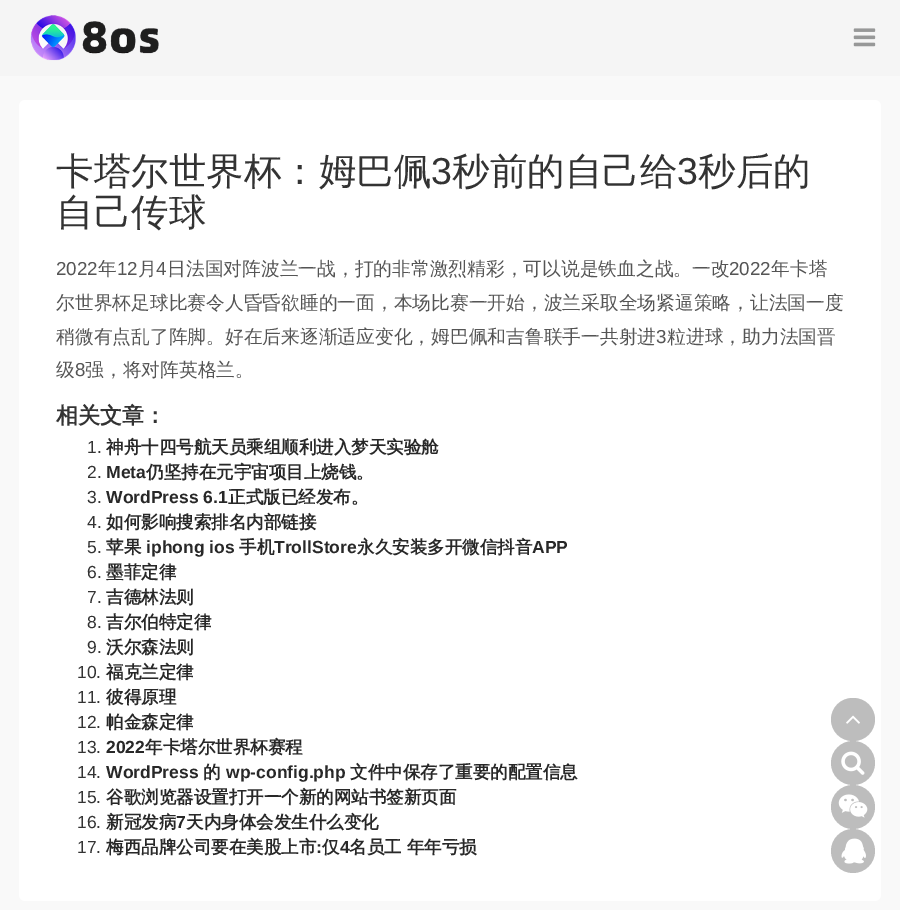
%!PS-Adobe-3.0
%%BoundingBox: 0 0 900 910
%%LanguageLevel: 3
%%Pages: 1
%%EndComments
%%BeginProlog
/f { fill } bind def
/fn { [ exch dup neg 0 0 3 -1 roll 0 0 ] selectfont } def
/tx { moveto show } def
/bx { rectfill } def
/ci { newpath 0 360 arc closepath } def
/rr { 5 dict begin { /r /h /w /y /x } { exch def } forall
  x r add y moveto x w add y 2 copy h add r arct x w add y h add x 1 index r arct
  x y h add x y r arct x y 2 copy exch w add exch r arct closepath end } def
/im { 5 dict begin { /h /w /y /x /name } { exch def } forall
  gsave x y translate w h scale
  w h 8 [w 0 0 h 0 0] name (r) file false 3 colorimage grestore end } def
%%EndProlog
%%BeginSetup
<< /PageSize [900 910] >> setpagedevice
%%EndSetup
%%Page: 1 1
0 910 translate 1 -1 scale
4 setmiterlimit
0.976 setgray
0 0 900 910 bx
0.961 setgray
0 0 900 76 bx
(image0.raw) 30 15 129 46 im
(image1.raw) 853 28 23 19 im
1 setgray
19 100 862 801 6 rr f
/WenQuanYiZenHei-Medium 37.5 fn
0.2 setgray
(卡塔尔世界杯：姆巴佩) 56 184 tx
/LiberationSans-Regular 37.5 fn
(3) 431 184 tx
/WenQuanYiZenHei-Medium 37.5 fn
(秒前的自己给) 452 184 tx
/LiberationSans-Regular 37.5 fn
(3) 677 184 tx
/WenQuanYiZenHei-Medium 37.5 fn
(秒后的) 698 184 tx
(自己传球) 56 225 tx
/LiberationSans-Regular 18.75 fn
0.333 setgray
(2022) 56 275 tx
/WenQuanYiZenHei-Medium 18.75 fn
(年) 98 275 tx
/LiberationSans-Regular 18.75 fn
(12) 117 275 tx
/WenQuanYiZenHei-Medium 18.75 fn
(月) 138 275 tx
/LiberationSans-Regular 18.75 fn
(4) 156 275 tx
/WenQuanYiZenHei-Medium 18.75 fn
(日法国对阵波兰一战，打的非常激烈精彩，可以说是铁血之战。一改) 167 275 tx
/LiberationSans-Regular 18.75 fn
(2022) 729 275 tx
/WenQuanYiZenHei-Medium 18.75 fn
(年卡塔) 771 275 tx
(尔世界杯足球比赛令人昏昏欲睡的一面，本场比赛一开始，波兰采取全场紧逼策略，让法国一度) 56 309 tx
(稍微有点乱了阵脚。好在后来逐渐适应变化，姆巴佩和吉鲁联手一共射进) 56 343 tx
/LiberationSans-Regular 18.75 fn
(3) 656 343 tx
/WenQuanYiZenHei-Medium 18.75 fn
(粒进球，助力法国晋) 667 343 tx
(级) 56 376 tx
/LiberationSans-Regular 18.75 fn
(8) 75 376 tx
/WenQuanYiZenHei-Medium 18.75 fn
(强，将对阵英格兰。) 85 376 tx
/WenQuanYiZenHei-Bold 22 fn
0.2 setgray
(相关文章：) 56 423 tx
/LiberationSans-Regular 17.5 fn
(1.) 87 453 tx
/WenQuanYiZenHei-Bold 17.5 fn
0.157 setgray
(神舟十四号航天员乘组顺利进入梦天实验舱) 106 453 tx
/LiberationSans-Regular 17.5 fn
0.2 setgray
(2.) 87 478 tx
/LiberationSans-Bold 17.5 fn
0.157 setgray
(Meta) 106 478 tx
/WenQuanYiZenHei-Bold 17.5 fn
(仍坚持在元宇宙项目上烧钱。) 146 478 tx
/LiberationSans-Regular 17.5 fn
0.2 setgray
(3.) 87 503 tx
/LiberationSans-Bold 17.5 fn
0.157 setgray
(WordPress 6.1) 106 503 tx
/WenQuanYiZenHei-Bold 17.5 fn
(正式版已经发布。) 228 503 tx
/LiberationSans-Regular 17.5 fn
0.2 setgray
(4.) 87 528 tx
/WenQuanYiZenHei-Bold 17.5 fn
0.157 setgray
(如何影响搜索排名内部链接) 106 528 tx
/LiberationSans-Regular 17.5 fn
0.2 setgray
(5.) 87 553 tx
/WenQuanYiZenHei-Bold 17.5 fn
0.157 setgray
(苹果) 106 553 tx
/LiberationSans-Bold 17.5 fn
(iphong ios) 146 553 tx
/WenQuanYiZenHei-Bold 17.5 fn
(手机) 239 553 tx
/LiberationSans-Bold 17.5 fn
(TrollStore) 274 553 tx
/WenQuanYiZenHei-Bold 17.5 fn
(永久安装多开微信抖音) 357 553 tx
/LiberationSans-Bold 17.5 fn
(APP) 532 553 tx
/LiberationSans-Regular 17.5 fn
0.2 setgray
(6.) 87 578 tx
/WenQuanYiZenHei-Bold 17.5 fn
0.157 setgray
(墨菲定律) 106 578 tx
/LiberationSans-Regular 17.5 fn
0.2 setgray
(7.) 87 603 tx
/WenQuanYiZenHei-Bold 17.5 fn
0.157 setgray
(吉德林法则) 106 603 tx
/LiberationSans-Regular 17.5 fn
0.2 setgray
(8.) 87 628 tx
/WenQuanYiZenHei-Bold 17.5 fn
0.157 setgray
(吉尔伯特定律) 106 628 tx
/LiberationSans-Regular 17.5 fn
0.2 setgray
(9.) 87 653 tx
/WenQuanYiZenHei-Bold 17.5 fn
0.157 setgray
(沃尔森法则) 106 653 tx
/LiberationSans-Regular 17.5 fn
0.2 setgray
(10.) 77 678 tx
/WenQuanYiZenHei-Bold 17.5 fn
0.157 setgray
(福克兰定律) 106 678 tx
/LiberationSans-Regular 17.5 fn
0.2 setgray
(11.) 77 703 tx
/WenQuanYiZenHei-Bold 17.5 fn
0.157 setgray
(彼得原理) 106 703 tx
/LiberationSans-Regular 17.5 fn
0.2 setgray
(12.) 77 728 tx
/WenQuanYiZenHei-Bold 17.5 fn
0.157 setgray
(帕金森定律) 106 728 tx
/LiberationSans-Regular 17.5 fn
0.2 setgray
(13.) 77 753 tx
/LiberationSans-Bold 17.5 fn
0.157 setgray
(2022) 106 753 tx
/WenQuanYiZenHei-Bold 17.5 fn
(年卡塔尔世界杯赛程) 145 753 tx
/LiberationSans-Regular 17.5 fn
0.2 setgray
(14.) 77 778 tx
/LiberationSans-Bold 17.5 fn
0.157 setgray
(WordPress) 106 778 tx
/WenQuanYiZenHei-Bold 17.5 fn
(的) 203 778 tx
/LiberationSans-Bold 17.5 fn
(wp-config.php) 226 778 tx
/WenQuanYiZenHei-Bold 17.5 fn
(文件中保存了重要的配置信息) 350 778 tx
/LiberationSans-Regular 17.5 fn
0.2 setgray
(15.) 77 803 tx
/WenQuanYiZenHei-Bold 17.5 fn
0.157 setgray
(谷歌浏览器设置打开一个新的网站书签新页面) 106 803 tx
/LiberationSans-Regular 17.5 fn
0.2 setgray
(16.) 77 828 tx
/WenQuanYiZenHei-Bold 17.5 fn
0.157 setgray
(新冠发病) 106 828 tx
/LiberationSans-Bold 17.5 fn
(7) 176 828 tx
/WenQuanYiZenHei-Bold 17.5 fn
(天内身体会发生什么变化) 186 828 tx
/LiberationSans-Regular 17.5 fn
0.2 setgray
(17.) 77 853 tx
/WenQuanYiZenHei-Bold 17.5 fn
0.157 setgray
(梅西品牌公司要在美股上市) 106 853 tx
/LiberationSans-Bold 17.5 fn
(:) 316 853 tx
/WenQuanYiZenHei-Bold 17.5 fn
(仅) 322 853 tx
/LiberationSans-Bold 17.5 fn
(4) 340 853 tx
/WenQuanYiZenHei-Bold 17.5 fn
(名员工 年年亏损) 349 853 tx
0.741 setgray
831 698 44 43 21.5 rr f
(image2.raw) 846 715 14 9 im
853 763 22 ci f
(image3.raw) 841 751 24 24 im
853 807 22 ci f
(image4.raw) 838 794 30 24 im
853 851 22 ci f
(image5.raw) 841 838 25 26 im
showpage
%%EOF
